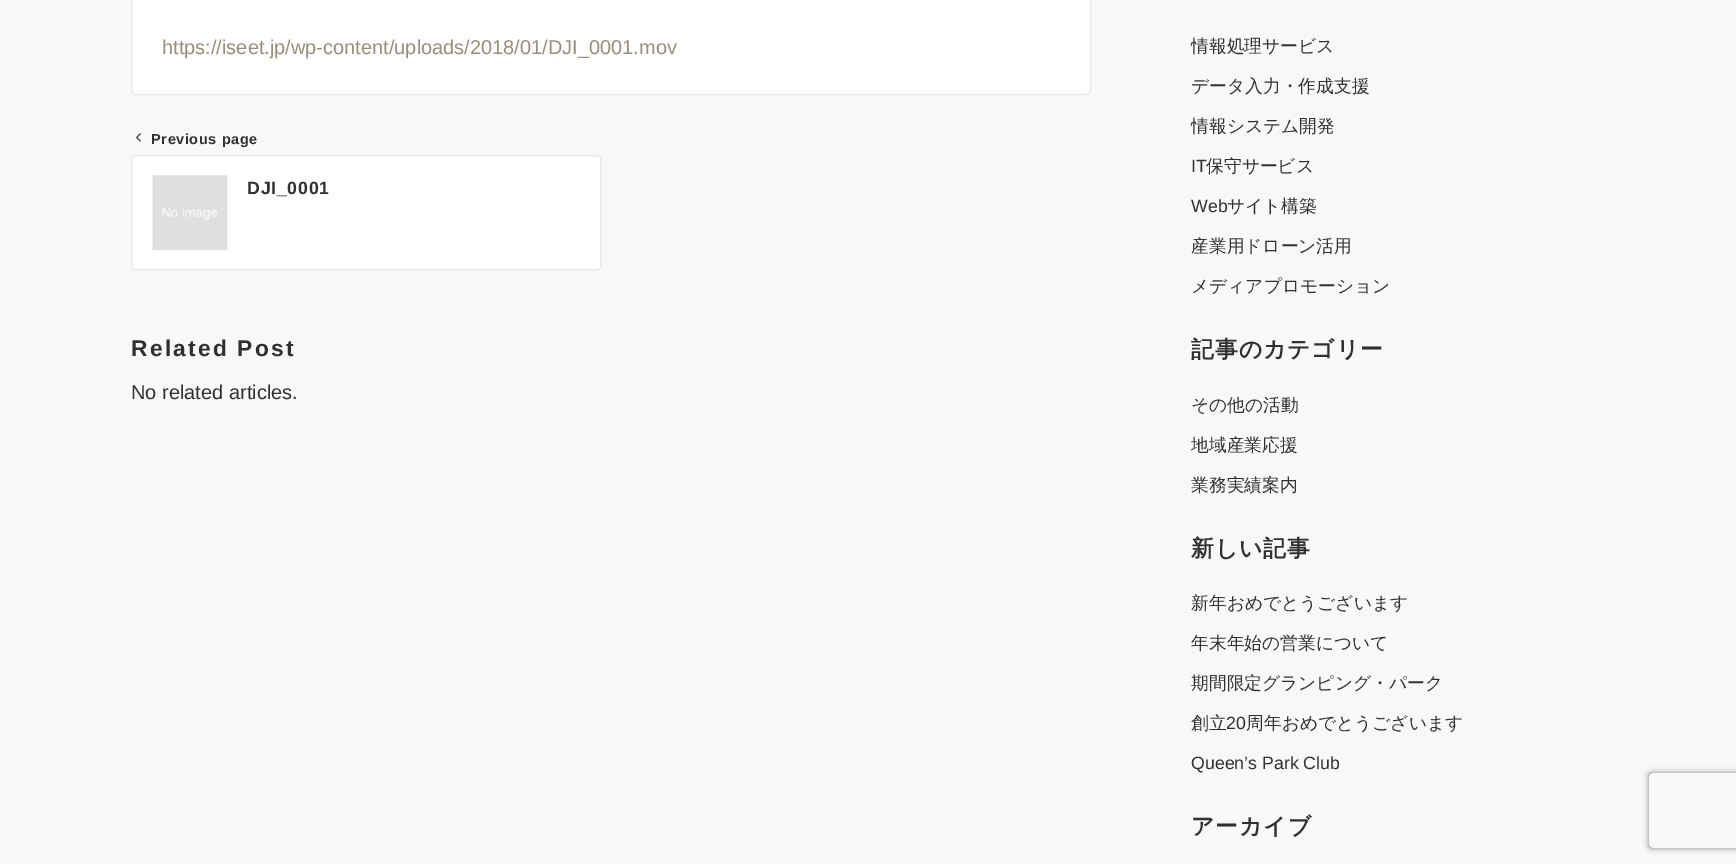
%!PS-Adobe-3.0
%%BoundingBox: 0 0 1736 864
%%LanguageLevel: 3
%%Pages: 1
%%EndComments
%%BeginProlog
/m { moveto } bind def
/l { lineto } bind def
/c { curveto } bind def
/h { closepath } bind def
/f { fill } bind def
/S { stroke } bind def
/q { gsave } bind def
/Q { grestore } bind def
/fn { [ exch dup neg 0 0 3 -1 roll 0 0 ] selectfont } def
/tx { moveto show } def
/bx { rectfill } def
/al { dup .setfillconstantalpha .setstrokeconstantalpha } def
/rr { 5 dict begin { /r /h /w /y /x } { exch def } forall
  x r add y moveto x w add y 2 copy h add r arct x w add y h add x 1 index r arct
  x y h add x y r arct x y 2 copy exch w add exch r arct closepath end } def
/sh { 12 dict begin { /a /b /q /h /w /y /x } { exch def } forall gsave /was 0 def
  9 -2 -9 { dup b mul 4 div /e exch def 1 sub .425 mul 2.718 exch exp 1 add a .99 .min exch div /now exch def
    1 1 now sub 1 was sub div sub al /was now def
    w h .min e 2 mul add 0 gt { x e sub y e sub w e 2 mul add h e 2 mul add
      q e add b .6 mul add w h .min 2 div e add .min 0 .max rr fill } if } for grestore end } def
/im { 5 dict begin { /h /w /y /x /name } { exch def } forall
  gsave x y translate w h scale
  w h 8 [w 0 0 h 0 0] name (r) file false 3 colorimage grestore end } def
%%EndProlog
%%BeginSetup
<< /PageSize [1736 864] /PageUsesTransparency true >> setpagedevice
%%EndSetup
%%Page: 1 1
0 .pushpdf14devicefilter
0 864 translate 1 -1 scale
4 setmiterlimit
0.973 setgray
0 0 1736 864 bx
1 setgray
131.5 -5.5 959 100 4.5 rr q f Q
0.898 0.906 0.91 setrgbcolor
S
/LiberationSans-Regular 20 fn
0.608 0.553 0.467 setrgbcolor
(https://iseet.jp/wp-content/uploads/2018/01/DJI_0001.mov) 162 54 tx
1 setgray
131.5 155.5 469 114 3.5 rr q f Q
0.898 0.906 0.91 setrgbcolor
S
(image0.raw) 136 133 5 9 im
/LiberationSans-Bold 14.5 fn
0.188 setgray
151 144 m 0.6 0 (Previous page) ashow
(image1.raw) 152 175 76 76 im
/LiberationSans-Bold 17.75 fn
247 194 m 0.75 0 (DJI_0001) ashow
/LiberationSans-Bold 22.75 fn
131 356 m 2.25 0 (Related Post) ashow
/LiberationSans-Regular 20 fn
(No related articles.) 131 399 tx
/WenQuanYiZenHei-Medium 17.75 fn
(情報処理サービス) 1191 52 tx
(データ入力・作成支援) 1191 92 tx
(情報システム開発) 1191 132 tx
/LiberationSans-Regular 17.75 fn
(IT) 1191 172 tx
/WenQuanYiZenHei-Medium 17.75 fn
(保守サービス) 1206 172 tx
/LiberationSans-Regular 17.75 fn
(Web) 1191 212 tx
/WenQuanYiZenHei-Medium 17.75 fn
(サイト構築) 1227 212 tx
(産業用ドローン活用) 1191 252 tx
(メディアプロモーション) 1191 292 tx
/WenQuanYiZenHei-Bold 22.75 fn
1191 357 m 1 0 (記事のカテゴリー) ashow
/WenQuanYiZenHei-Medium 17.75 fn
(その他の活動) 1191 411 tx
(地域産業応援) 1191 451 tx
(業務実績案内) 1191 491 tx
/WenQuanYiZenHei-Bold 22.75 fn
1191 556 m 1 0 (新しい記事) ashow
/WenQuanYiZenHei-Medium 17.75 fn
(新年おめでとうございます) 1191 609 tx
(年末年始の営業について) 1191 649 tx
(期間限定グランピング・パーク) 1191 689 tx
(創立) 1191 729 tx
/LiberationSans-Regular 17.75 fn
(20) 1226 729 tx
/WenQuanYiZenHei-Medium 17.75 fn
(周年おめでとうございます) 1246 729 tx
/LiberationSans-Regular 17.75 fn
(Queen’s Park Club) 1191 769 tx
/WenQuanYiZenHei-Bold 22.75 fn
1191 834 m 1 0 (アーカイブ) ashow
q
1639 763 m 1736 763 l 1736 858 l 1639 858 l h 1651.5 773 m 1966.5 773 l 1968 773 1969 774 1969 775.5 c 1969 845.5 l 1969 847 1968 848 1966.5 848 c 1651.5 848 l 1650 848 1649 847 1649 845.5 c 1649 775.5 l 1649 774 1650 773 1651.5 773 c h eoclip newpath
0.502 setgray
1649 773 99 75 2.5 3 1 sh
Q
.poppdf14devicefilter showpage
%%EOF
